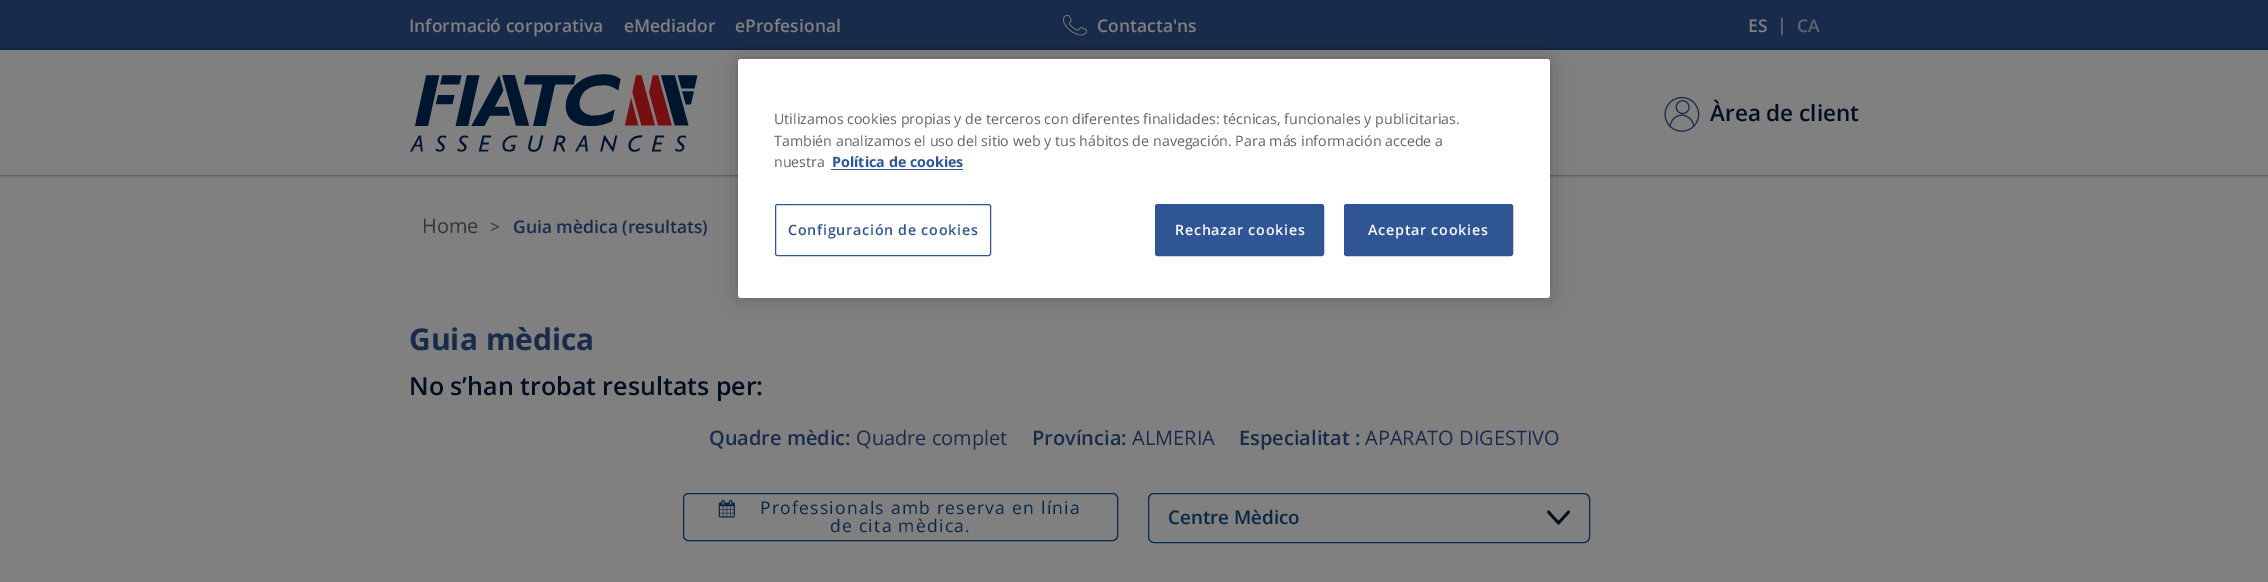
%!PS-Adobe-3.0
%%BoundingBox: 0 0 2268 582
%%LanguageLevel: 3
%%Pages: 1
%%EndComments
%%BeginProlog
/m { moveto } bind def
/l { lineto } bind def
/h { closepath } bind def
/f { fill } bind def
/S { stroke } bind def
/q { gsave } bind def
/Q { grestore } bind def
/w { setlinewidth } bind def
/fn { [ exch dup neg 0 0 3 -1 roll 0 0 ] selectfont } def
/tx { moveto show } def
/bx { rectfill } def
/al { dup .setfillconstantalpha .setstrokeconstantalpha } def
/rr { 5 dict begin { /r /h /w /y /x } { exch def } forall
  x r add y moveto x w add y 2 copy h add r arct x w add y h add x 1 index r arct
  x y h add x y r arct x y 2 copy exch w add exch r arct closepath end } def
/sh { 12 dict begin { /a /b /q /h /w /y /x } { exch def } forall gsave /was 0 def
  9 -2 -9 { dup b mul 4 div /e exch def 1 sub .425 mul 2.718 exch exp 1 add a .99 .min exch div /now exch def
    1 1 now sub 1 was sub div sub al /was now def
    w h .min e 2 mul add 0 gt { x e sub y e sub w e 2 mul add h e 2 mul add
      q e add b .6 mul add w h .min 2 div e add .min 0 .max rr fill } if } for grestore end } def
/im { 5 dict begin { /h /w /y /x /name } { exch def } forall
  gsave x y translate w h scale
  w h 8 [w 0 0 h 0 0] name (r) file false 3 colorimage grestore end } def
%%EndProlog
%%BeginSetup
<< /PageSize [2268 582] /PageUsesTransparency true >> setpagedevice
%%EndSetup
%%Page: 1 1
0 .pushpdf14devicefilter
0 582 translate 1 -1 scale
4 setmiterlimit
0.502 setgray
0 0 2268 582 bx
0.094 0.169 0.294 setrgbcolor
0 0 2268 50 bx
/OpenSans-SemiBold 17.5 fn
0.502 setgray
(Informació corporativa) 409 32 tx
(eMediador) 624 32 tx
(eProfesional) 735 32 tx
(image0.raw) 1063 14 24 22 im
(Contacta'ns) 1097 32 tx
(ES) 1748 32 tx
/OpenSans-Regular 17.5 fn
(|) 1777 31 tx
/OpenSans-SemiBold 17.5 fn
0.365 0.392 0.431 setrgbcolor
(CA) 1797 32 tx
q
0 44 m 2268 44 l 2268 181 l 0 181 l h 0 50 m 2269 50 l 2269 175 l 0 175 l h eoclip newpath
0 setgray
1 51 2267 123 0 2 1 sh
Q
(image1.raw) 410 74 288 78 im
(image2.raw) 1664 96 36 36 im
/OpenSans-SemiBold 22.5 fn
0.008 0.059 0.129 setrgbcolor
(Àrea de client) 1710 121 tx
/OpenSans-Regular 20 fn
0.192 0.208 0.216 setrgbcolor
(Home) 422 233 tx
/OpenSans-Regular 17.5 fn
(>) 490 233 tx
/OpenSans-SemiBold 17.5 fn
0.094 0.169 0.294 setrgbcolor
(Guia mèdica \(resultats\)) 513 233 tx
0 setgray
738 59 812 239 3 11 0.2 sh
1 setgray
738 59 812 239 3 rr f
/OpenSans-Regular 14.25 fn
0.365 0.392 0.431 setrgbcolor
(Utilizamos cookies propias y de terceros con diferentes finalidades: técnicas, funcionales y publicitarias.) 774 124 tx
(También analizamos el uso del sitio web y tus hábitos de navegación. Para más información accede a) 774 146 tx
(nuestra) 774 167 tx
/OpenSans-Bold 14.25 fn
0.184 0.333 0.584 setrgbcolor
(Política de cookies) 832 167 tx
831 169 132 1 bx
775.5 204.5 215 51 2 rr S
/OpenSans-SemiBold 14.25 fn
788 235 m 0.75 0 (Configuración de cookies) ashow
1155.5 204.5 168 51 2 rr q f Q
S
1 setgray
1175 235 m 0.75 0 (Rechazar cookies) ashow
0.184 0.333 0.584 setrgbcolor
1344.5 204.5 168 51 2 rr q f Q
S
1 setgray
1368 235 m 0.75 0 (Aceptar cookies) ashow
/OpenSans-Bold 30 fn
0.094 0.169 0.294 setrgbcolor
(Guia mèdica) 409 350 tx
/OpenSans-SemiBold 25 fn
0.008 0.059 0.129 setrgbcolor
(No s’han trobat resultats per:) 409 395 tx
/OpenSans-SemiBold 20 fn
0.094 0.169 0.294 setrgbcolor
(Quadre mèdic:) 709 445 tx
/OpenSans-Regular 20 fn
(Quadre complet) 856 445 tx
/OpenSans-SemiBold 20 fn
(Província:) 1032 445 tx
/OpenSans-Regular 20 fn
(ALMERIA) 1132 445 tx
/OpenSans-SemiBold 20 fn
(Especialitat :) 1239 445 tx
/OpenSans-Regular 20 fn
(APARATO DIGESTIVO) 1365 445 tx
0.039 0.157 0.271 setrgbcolor
683.5 493.5 434 47 4.5 rr S
(image3.raw) 718 500 17 18 im
/OpenSans-Regular 17.5 fn
760 514 m 1.25 0 (Professionals amb reserva en línia) ashow
830 532 m 1.25 0 (de cita mèdica.) ashow
0.008 0.059 0.129 setrgbcolor
2.7 w
1 setlinecap
1 setlinejoin
1568.5 512 m 1558.5 523 l 1548.5 512 l S
0.039 0.157 0.271 setrgbcolor
1 w
0 setlinecap
0 setlinejoin
1148.5 493.5 441 49 5.5 rr S
/OpenSans-SemiBold 18.75 fn
(Centre Mèdico) 1168 524 tx
.poppdf14devicefilter showpage
%%EOF
